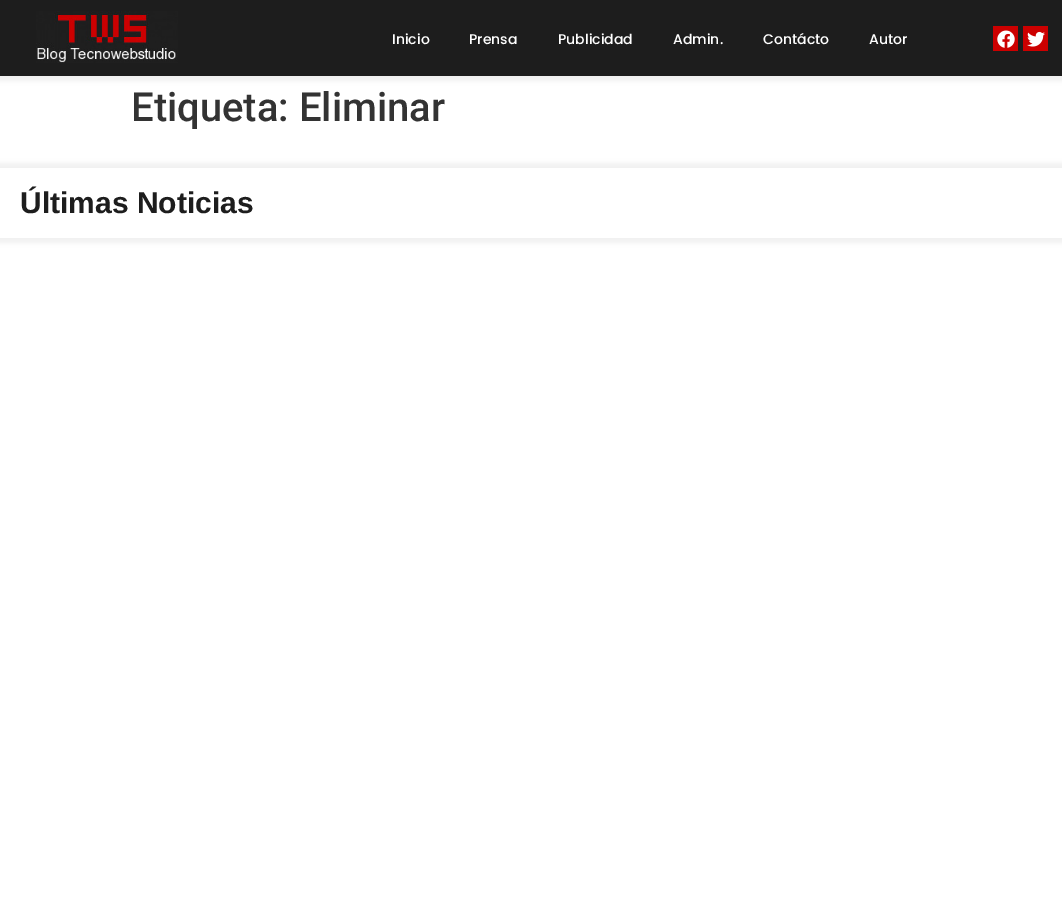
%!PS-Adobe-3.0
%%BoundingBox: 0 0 1062 914
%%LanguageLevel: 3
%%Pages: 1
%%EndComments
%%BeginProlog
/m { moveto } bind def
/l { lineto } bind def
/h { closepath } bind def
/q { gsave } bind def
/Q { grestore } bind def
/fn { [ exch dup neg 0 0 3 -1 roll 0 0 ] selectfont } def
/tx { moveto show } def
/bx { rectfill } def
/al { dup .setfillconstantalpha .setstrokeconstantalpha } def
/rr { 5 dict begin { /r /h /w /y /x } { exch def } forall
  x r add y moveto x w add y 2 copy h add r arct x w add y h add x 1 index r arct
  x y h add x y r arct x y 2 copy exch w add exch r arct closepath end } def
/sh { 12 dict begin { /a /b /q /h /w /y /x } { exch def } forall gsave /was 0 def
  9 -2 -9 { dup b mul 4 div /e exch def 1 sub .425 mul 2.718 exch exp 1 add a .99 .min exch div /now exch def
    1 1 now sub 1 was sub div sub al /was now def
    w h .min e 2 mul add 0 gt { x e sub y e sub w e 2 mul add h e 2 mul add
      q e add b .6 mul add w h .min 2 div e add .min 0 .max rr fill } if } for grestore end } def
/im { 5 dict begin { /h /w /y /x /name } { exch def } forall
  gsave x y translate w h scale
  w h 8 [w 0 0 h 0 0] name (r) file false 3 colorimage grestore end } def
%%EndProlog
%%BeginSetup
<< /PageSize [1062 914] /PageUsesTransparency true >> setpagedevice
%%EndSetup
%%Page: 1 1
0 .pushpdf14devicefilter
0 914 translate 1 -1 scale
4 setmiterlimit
1 setgray
0 0 1062 914 bx
0.114 setgray
0 0 1062 1 bx
0 setgray
-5 -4 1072 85 0 2.5 0.05 sh
0.114 setgray
0 1 1062 75 bx
(image0.raw) 36 11 142 52 im
/Poppins-Medium 14 fn
1 setgray
(Inicio) 392 44 tx
(Prensa) 469 44 tx
(Publicidad) 558 44 tx
(Admin.) 673 44 tx
(Contácto) 763 44 tx
(Autor) 869 44 tx
0.8 0 0 setrgbcolor
993 26 25 25 bx
(image1.raw) 997 30 18 18 im
1023 26 25 25 bx
(image2.raw) 1027 31 18 16 im
/Roboto-Medium 40 fn
0.2 setgray
(Etiqueta: Eliminar) 131 121 tx
q
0 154 m 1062 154 l 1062 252 l 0 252 l h 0 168 m 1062 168 l 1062 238 l 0 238 l h eoclip newpath
0 setgray
-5 163 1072 80 0 2.5 0.05 sh
Q
/LiberationSans-Bold 30 fn
0.114 setgray
(Últimas Noticias) 20 213 tx
.poppdf14devicefilter showpage
%%EOF
